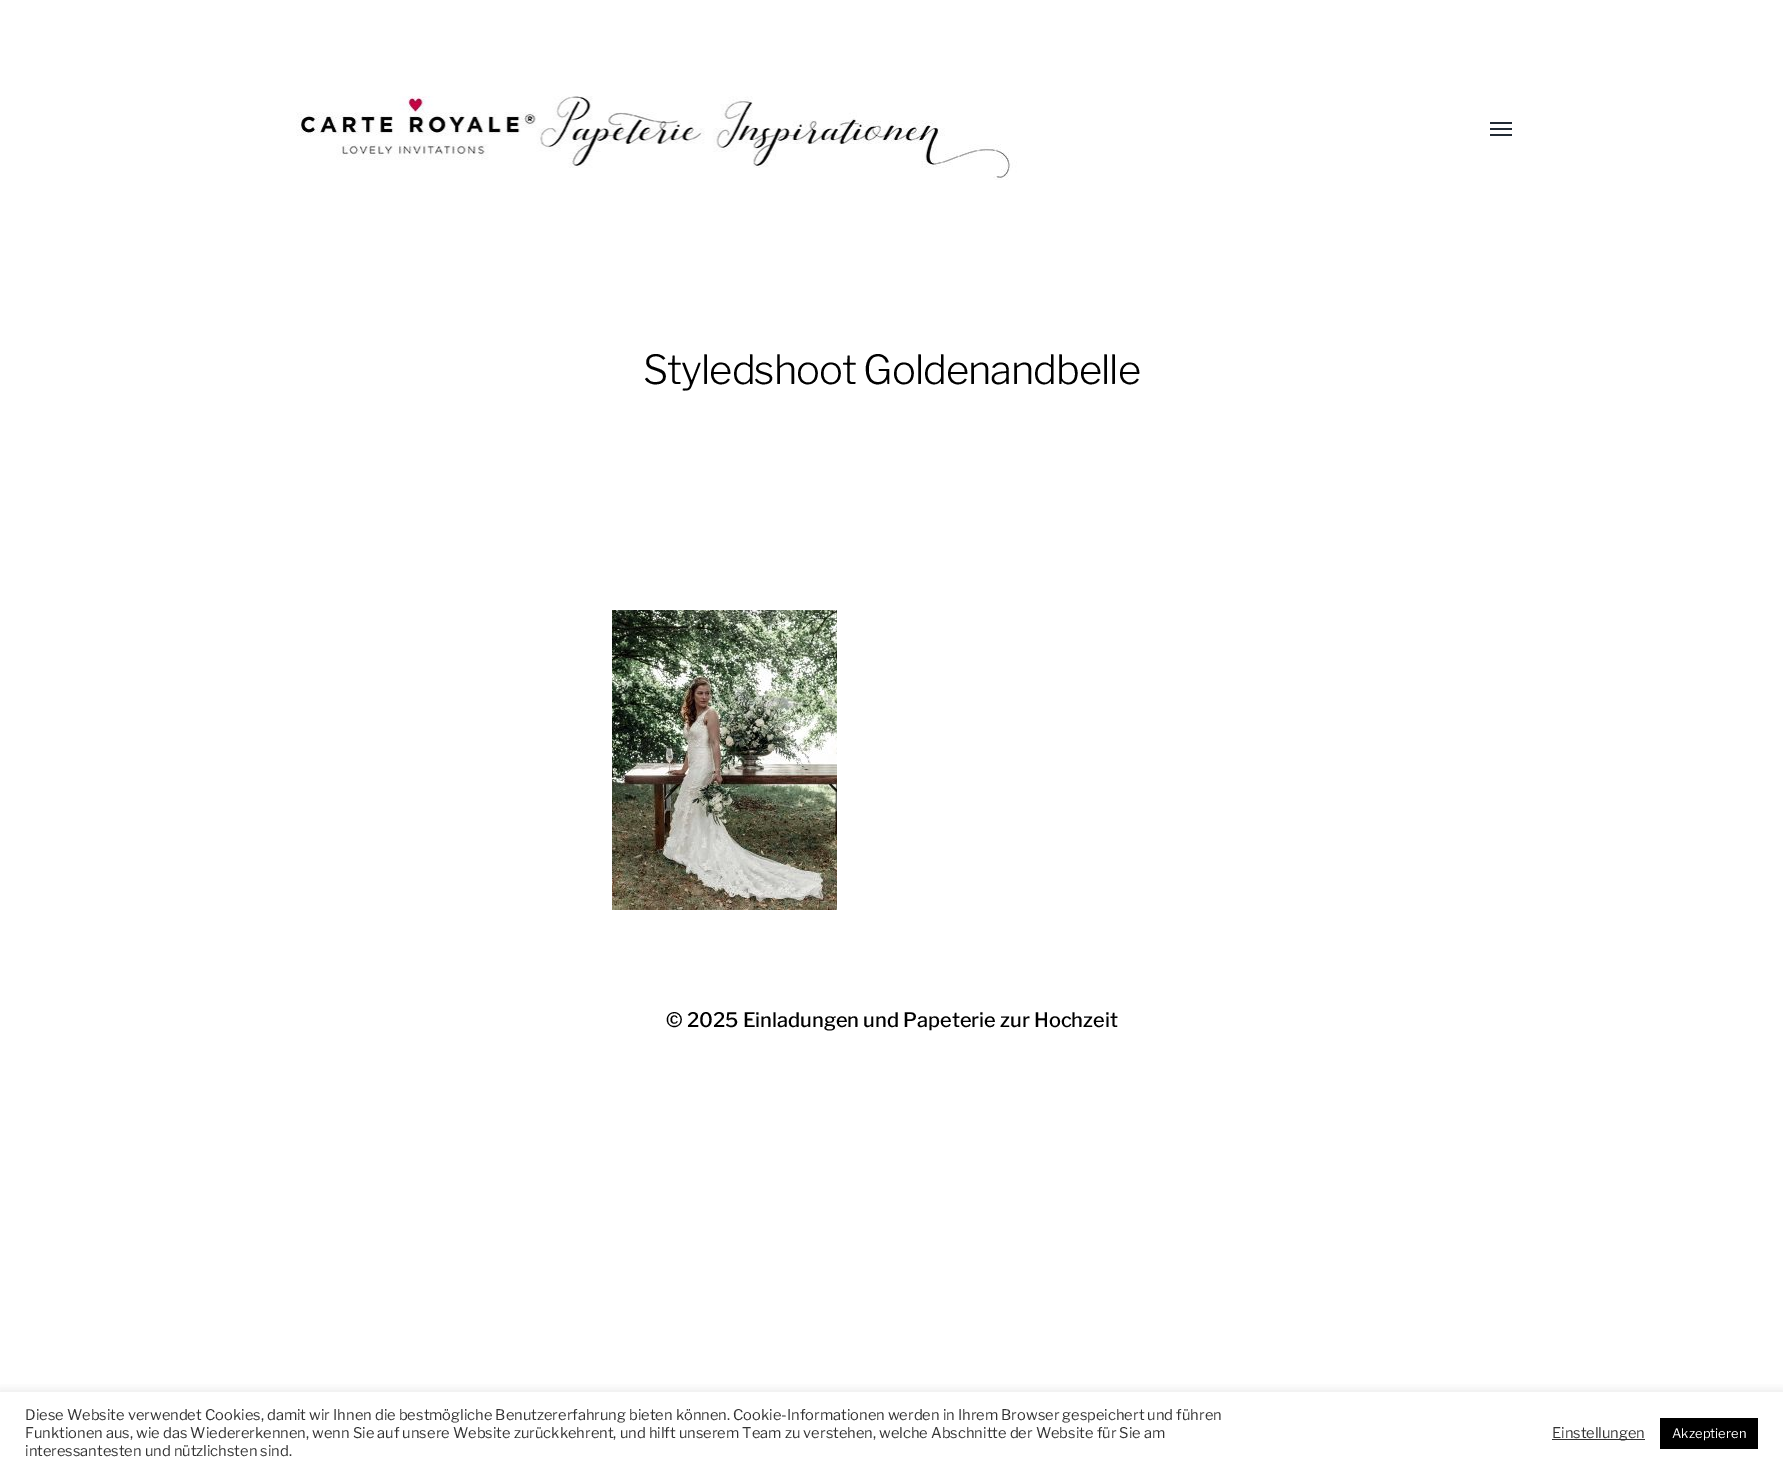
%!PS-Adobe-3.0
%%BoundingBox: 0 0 1783 1474
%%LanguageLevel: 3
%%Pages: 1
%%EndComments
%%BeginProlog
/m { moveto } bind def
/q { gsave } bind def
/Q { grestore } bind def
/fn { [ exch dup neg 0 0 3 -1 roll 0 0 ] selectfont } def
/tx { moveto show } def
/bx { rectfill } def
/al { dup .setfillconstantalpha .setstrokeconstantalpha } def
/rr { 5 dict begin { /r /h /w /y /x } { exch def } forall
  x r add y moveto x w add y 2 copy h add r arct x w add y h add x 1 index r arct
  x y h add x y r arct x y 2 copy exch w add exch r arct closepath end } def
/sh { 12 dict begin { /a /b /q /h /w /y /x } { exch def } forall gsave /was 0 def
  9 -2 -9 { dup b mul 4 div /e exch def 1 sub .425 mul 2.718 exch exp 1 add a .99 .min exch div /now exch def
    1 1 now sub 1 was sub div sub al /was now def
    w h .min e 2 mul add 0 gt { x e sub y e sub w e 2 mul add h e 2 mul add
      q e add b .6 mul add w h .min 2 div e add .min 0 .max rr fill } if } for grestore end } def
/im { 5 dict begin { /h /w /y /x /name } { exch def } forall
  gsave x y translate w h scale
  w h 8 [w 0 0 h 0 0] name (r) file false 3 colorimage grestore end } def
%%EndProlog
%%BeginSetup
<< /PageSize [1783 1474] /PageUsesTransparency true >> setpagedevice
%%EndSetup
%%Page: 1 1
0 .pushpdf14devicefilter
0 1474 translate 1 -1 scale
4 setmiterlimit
1 setgray
0 0 1783 1474 bx
(image0.raw) 296 96 721 84 im
0.129 0.165 0.204 setrgbcolor
1490 122 22 2 bx
1490 128 22 2 bx
1490 134 22 2 bx
/LibreFranklin-Light 40 fn
0 setgray
643 384 m -1 0 (Styledshoot Goldenandbelle) ashow
(image1.raw) 612 610 225 300 im
/LibreFranklin-Medium 20 fn
(© 2025 Einladungen und Papeterie zur Hochzeit) 666 1027 tx
q
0 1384 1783 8 rectclip
0.675 0.671 0.671 setrgbcolor
0 1391 1783 82 0 5 0.3 sh
Q
/LibreFranklin-Regular 14.67 fn
0.2 setgray
(Diese Website verwendet Cookies, damit wir Ihnen die bestmögliche Benutzererfahrung bieten können. Cookie-Informationen werden in Ihrem Browser gespeichert und führen) 25 1420 tx
(Funktionen aus, wie das Wiedererkennen, wenn Sie auf unsere Website zurückkehrent, und hilft unserem Team zu verstehen, welche Abschnitte der Website für Sie am) 25 1438 tx
(interessantesten und nützlichsten sind.) 25 1456 tx
1552 1439 93 1 bx
(Einstellungen) 1552 1438 tx
0 setgray
1660 1418 98 31 bx
/LibreFranklin-Regular 13 fn
1 setgray
(Akzeptieren) 1672 1438 tx
.poppdf14devicefilter showpage
%%EOF
